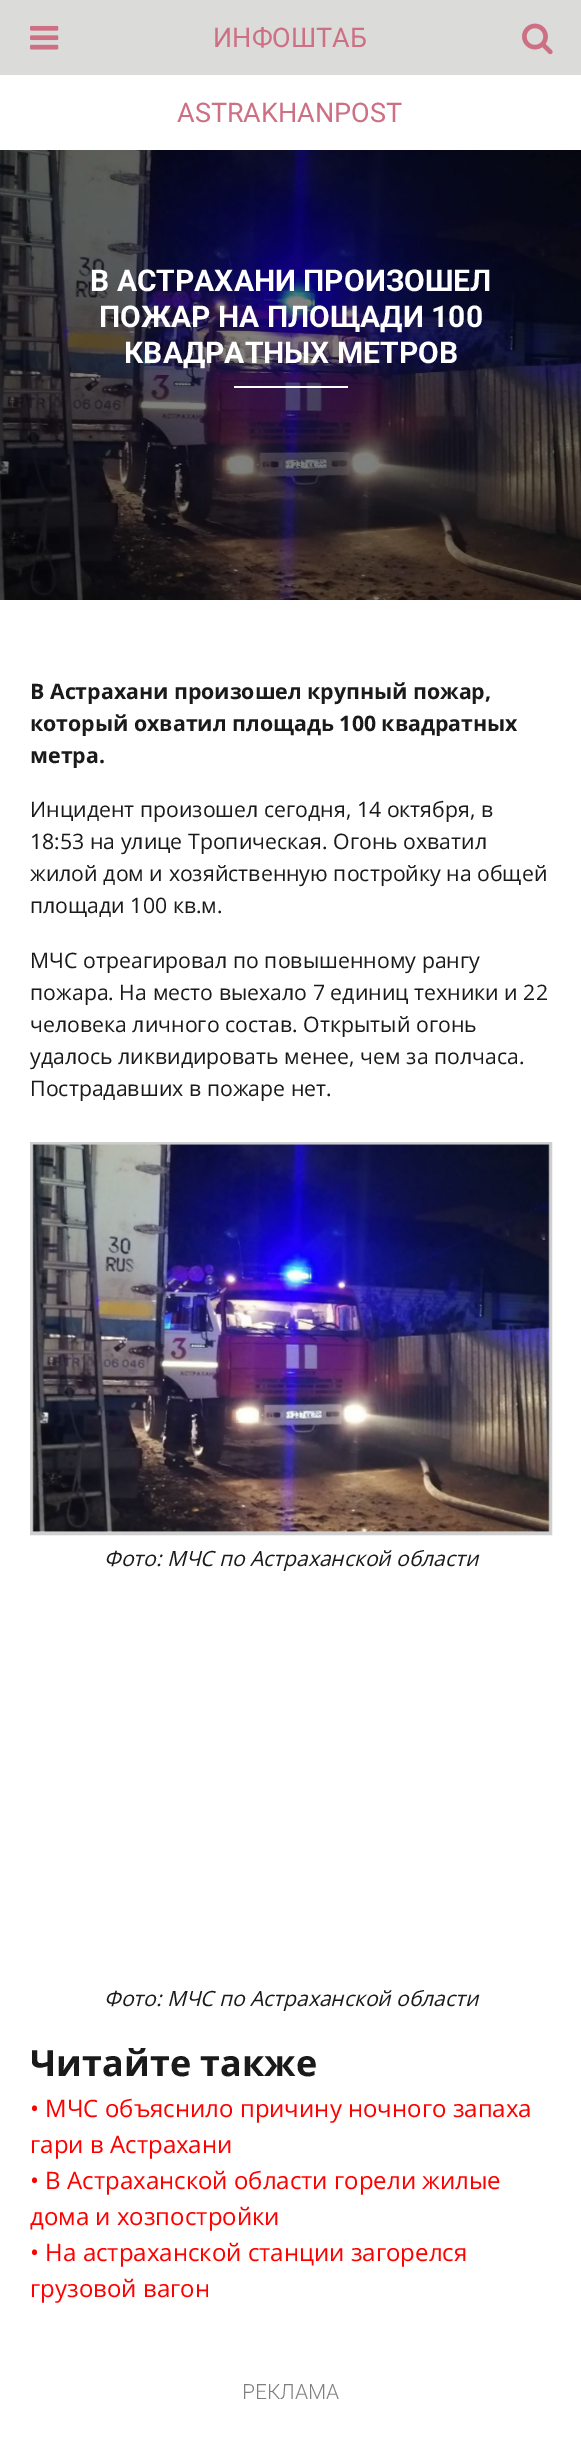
%!PS-Adobe-3.0
%%BoundingBox: 0 0 581 2453
%%LanguageLevel: 3
%%Pages: 1
%%EndComments
%%BeginProlog
/w { setlinewidth } bind def
/fn { [ exch dup neg 0 0 3 -1 roll 0 0 ] selectfont } def
/tx { moveto show } def
/bx { rectfill } def
/im { 5 dict begin { /h /w /y /x /name } { exch def } forall
  gsave x y translate w h scale
  w h 8 [w 0 0 h 0 0] name (r) file false 3 colorimage grestore end } def
%%EndProlog
%%BeginSetup
<< /PageSize [581 2453] >> setpagedevice
%%EndSetup
%%Page: 1 1
0 2453 translate 1 -1 scale
4 setmiterlimit
1 setgray
0 0 581 2453 bx
0.859 0.859 0.855 setrgbcolor
0 0 581 75 bx
(image0.raw) 30 25 29 25 im
/Roboto-Regular 27 fn
0.804 0.439 0.518 setrgbcolor
(ИНФОШТАБ) 213 47 tx
(ASTRAKHANPOST) 177 122 tx
(image1.raw) 522 23 31 32 im
(image2.raw) 0 150 581 450 im
/Roboto-Bold 30 fn
1 setgray
(В АСТРАХАНИ ПРОИЗОШЕЛ) 90 291 tx
(ПОЖАР НА ПЛОЩАДИ 100) 99 327 tx
(КВАДРАТНЫХ МЕТРОВ) 124 363 tx
234 386 114 2 bx
/OpenSans-Bold 21.3 fn
0.102 setgray
(В Астрахани произошел крупный пожар,) 30 699 tx
(который охватил площадь 100 квадратных) 30 731 tx
(метра.) 30 763 tx
/OpenSans-Regular 21.3 fn
(Инцидент произошел сегодня, 14 октября, в) 30 817 tx
(18:53 на улице Тропическая. Огонь охватил) 30 849 tx
(жилой дом и хозяйственную постройку на общей) 30 881 tx
(площади 100 кв.м.) 30 913 tx
(МЧС отреагировал по повышенному рангу) 30 968 tx
(пожара. На место выехало 7 единиц техники и 22) 30 1000 tx
(человека личного состав. Открытый огонь) 30 1032 tx
(удалось ликвидировать менее, чем за полчаса.) 30 1064 tx
(Пострадавших в пожаре нет.) 30 1096 tx
0.812 setgray
3 w
31.5 1143.5 519 390 rectstroke
(image3.raw) 32 1144 518 388 im
/OpenSans-Italic 21 fn
0.102 setgray
(Фото: МЧС по Астраханской области) 104 1566 tx
(Фото: МЧС по Астраханской области) 104 2006 tx
/OpenSans-Bold 36 fn
(Читайте также) 30 2076 tx
/OpenSans-Regular 24 fn
1 0 0 setrgbcolor
(• МЧС объяснило причину ночного запаха) 30 2117 tx
(гари в Астрахани) 30 2153 tx
(• В Астраханской области горели жилые) 30 2189 tx
(дома и хозпостройки) 30 2225 tx
(• На астраханской станции загорелся) 30 2261 tx
(грузовой вагон) 30 2297 tx
/Roboto-Light 21 fn
0.498 setgray
(РЕКЛАМА) 242 2399 tx
showpage
%%EOF
